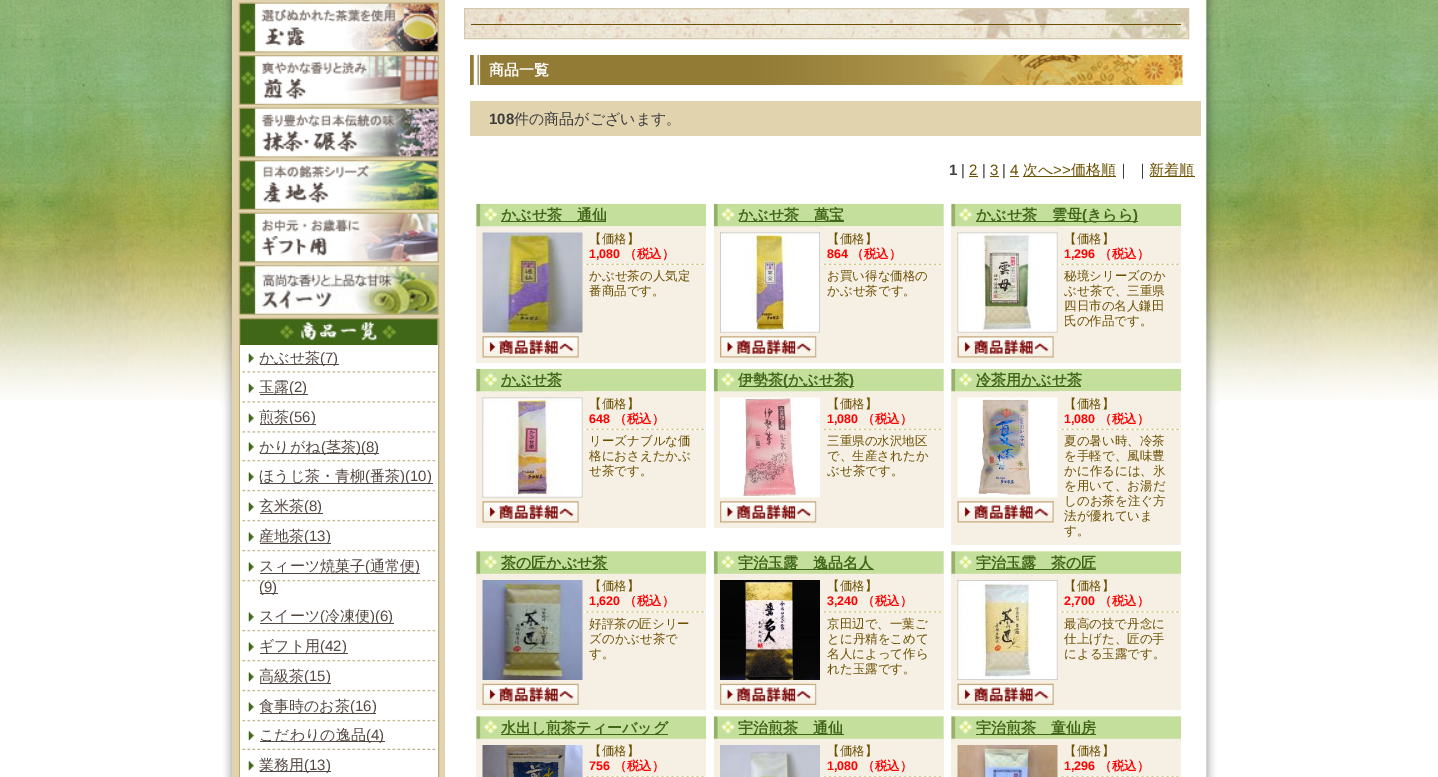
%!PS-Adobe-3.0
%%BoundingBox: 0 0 1438 777
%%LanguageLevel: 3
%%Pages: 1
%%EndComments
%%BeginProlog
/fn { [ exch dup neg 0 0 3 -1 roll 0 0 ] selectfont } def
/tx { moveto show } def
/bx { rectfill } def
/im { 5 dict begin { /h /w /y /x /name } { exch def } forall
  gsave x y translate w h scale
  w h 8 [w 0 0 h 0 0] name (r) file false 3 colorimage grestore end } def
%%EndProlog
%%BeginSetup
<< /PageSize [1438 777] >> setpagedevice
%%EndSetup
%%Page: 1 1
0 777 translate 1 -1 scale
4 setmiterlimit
1 setgray
0 0 1438 777 bx
(image0.raw) 0 0 1438 400 im
(image1.raw) 220 407 1000 370 im
(image2.raw) 220 0 1000 407 im
0.878 0.827 0.678 setrgbcolor
232 0 213 777 bx
(image3.raw) 238 2 201 51 im
(image4.raw) 238 55 201 50 im
(image5.raw) 238 107 201 51 im
(image6.raw) 238 160 201 50 im
(image7.raw) 238 212 201 51 im
(image8.raw) 238 265 201 50 im
(image9.raw) 240 319 198 26 im
0.737 0.671 0.478 setrgbcolor
239.5 318.5 199 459 rectstroke
1 setgray
240 345 198 432 bx
(image10.raw) 242 353 194 20 im
0.325 0.278 0.255 setrgbcolor
260 364 79 1 bx
/WenQuanYiZenHei-Medium 15 fn
(かぶせ茶) 259 363 tx
/LiberationSans-Regular 15 fn
(\(7\)) 320 363 tx
(image10.raw) 242 383 194 20 im
/WenQuanYiZenHei-Medium 15 fn
(玉露) 259 392 tx
260 394 48 1 bx
/LiberationSans-Regular 15 fn
(\(2\)) 289 392 tx
(image10.raw) 242 413 194 20 im
260 424 56 1 bx
/WenQuanYiZenHei-Medium 15 fn
(煎茶) 259 422 tx
/LiberationSans-Regular 15 fn
(\(56\)) 289 422 tx
(image11.raw) 242 442 194 20 im
260 453 119 1 bx
/WenQuanYiZenHei-Medium 15 fn
(かりがね) 259 452 tx
/LiberationSans-Regular 15 fn
(\() 321 452 tx
/WenQuanYiZenHei-Medium 15 fn
(茎茶) 326 452 tx
/LiberationSans-Regular 15 fn
(\)\(8\)) 356 452 tx
(image11.raw) 242 472 194 20 im
260 483 173 1 bx
/WenQuanYiZenHei-Medium 15 fn
(ほうじ茶・青柳) 259 481 tx
/LiberationSans-Regular 15 fn
(\() 365 481 tx
/WenQuanYiZenHei-Medium 15 fn
(番茶) 370 481 tx
/LiberationSans-Regular 15 fn
(\)\(10\)) 400 481 tx
(image12.raw) 242 502 194 20 im
260 513 63 1 bx
/WenQuanYiZenHei-Medium 15 fn
(玄米茶) 259 511 tx
/LiberationSans-Regular 15 fn
(\(8\)) 304 511 tx
(image11.raw) 242 532 194 20 im
/WenQuanYiZenHei-Medium 15 fn
(産地茶) 259 541 tx
260 543 71 1 bx
/LiberationSans-Regular 15 fn
(\(13\)) 304 541 tx
(image11.raw) 242 562 194 20 im
/WenQuanYiZenHei-Medium 15 fn
(スィーツ焼菓子) 259 571 tx
260 573 160 1 bx
/LiberationSans-Regular 15 fn
(\() 365 571 tx
/WenQuanYiZenHei-Medium 15 fn
(通常便) 370 571 tx
/LiberationSans-Regular 15 fn
(\)) 415 571 tx
260 593 18 1 bx
(\(9\)) 259 592 tx
(image11.raw) 242 612 194 20 im
/WenQuanYiZenHei-Medium 15 fn
(スイーツ) 259 621 tx
260 623 134 1 bx
/LiberationSans-Regular 15 fn
(\() 320 621 tx
/WenQuanYiZenHei-Medium 15 fn
(冷凍便) 325 621 tx
/LiberationSans-Regular 15 fn
(\)\(6\)) 370 621 tx
(image11.raw) 242 642 194 20 im
260 653 88 1 bx
/WenQuanYiZenHei-Medium 15 fn
(ギフト用) 259 651 tx
/LiberationSans-Regular 15 fn
(\(42\)) 320 651 tx
(image11.raw) 242 672 194 20 im
/WenQuanYiZenHei-Medium 15 fn
(高級茶) 259 681 tx
260 683 71 1 bx
/LiberationSans-Regular 15 fn
(\(15\)) 304 681 tx
(image11.raw) 242 702 194 20 im
260 713 116 1 bx
/WenQuanYiZenHei-Medium 15 fn
(食事時のお茶) 259 711 tx
/LiberationSans-Regular 15 fn
(\(16\)) 350 711 tx
(image13.raw) 242 731 194 19 im
260 741 125 1 bx
/WenQuanYiZenHei-Medium 15 fn
(こだわりの逸品) 259 740 tx
/LiberationSans-Regular 15 fn
(\(4\)) 366 740 tx
(image14.raw) 248 761 6 10 im
260 771 71 1 bx
/WenQuanYiZenHei-Medium 15 fn
(業務用) 259 770 tx
/LiberationSans-Regular 15 fn
(\(13\)) 304 770 tx
(image15.raw) 465 9 723 29 im
0.831 0.788 0.667 setrgbcolor
464.5 8.5 724 30 rectstroke
0.424 0.31 0 setrgbcolor
471 24 710 1 bx
(image16.raw) 470 55 713 30 im
/WenQuanYiZenHei-Bold 15 fn
1 setgray
(商品一覧) 489 75 tx
0.878 0.827 0.678 setrgbcolor
470 101 731 35 bx
/LiberationSans-Bold 15 fn
0.239 setgray
(108) 489 124 tx
/WenQuanYiZenHei-Medium 15 fn
(件の商品がございます。) 514 124 tx
/LiberationSans-Bold 15 fn
(1) 949 175 tx
/LiberationSans-Regular 15 fn
(|) 961 175 tx
0.424 0.31 0 setrgbcolor
(2) 969 175 tx
969 176 9 1 bx
0.239 setgray
(|) 982 175 tx
0.424 0.31 0 setrgbcolor
(3) 990 175 tx
990 176 9 1 bx
0.239 setgray
(|) 1002 175 tx
0.424 0.31 0 setrgbcolor
(4) 1010 175 tx
1010 176 9 1 bx
1023 176 93 1 bx
/WenQuanYiZenHei-Medium 15 fn
(次へ) 1023 175 tx
/LiberationSans-Regular 15 fn
(>>) 1053 175 tx
/WenQuanYiZenHei-Medium 15 fn
(価格順) 1071 175 tx
0.239 setgray
(｜ ｜) 1116 175 tx
0.424 0.31 0 setrgbcolor
1150 176 45 1 bx
(新着順) 1149 175 tx
0.965 0.937 0.89 setrgbcolor
476 204 230 159 bx
(image17.raw) 476 203 231 24 im
0.251 0.4 0.094 setrgbcolor
501 221 105 1 bx
/WenQuanYiZenHei-Bold 15 fn
(かぶせ茶　通仙) 501 220 tx
(image18.raw) 482 232 101 101 im
(image19.raw) 482 336 97 22 im
0.965 0.937 0.89 setrgbcolor
584 226 122 1 bx
(image20.raw) 583 263 122 2 im
/WenQuanYiZenHei-Medium 12.5 fn
0.424 0.31 0 setrgbcolor
(【価格】) 589 243 tx
/LiberationSans-Bold 12.5 fn
1 0 0 setrgbcolor
(1,080) 589 258 tx
/WenQuanYiZenHei-Bold 12.5 fn
(（税込）) 624 258 tx
/WenQuanYiZenHei-Medium 12.5 fn
0.424 0.31 0 setrgbcolor
(かぶせ茶の人気定) 589 280 tx
(番商品です。) 589 295 tx
0.965 0.937 0.89 setrgbcolor
714 204 230 159 bx
(image21.raw) 713 203 231 24 im
0.251 0.4 0.094 setrgbcolor
739 221 105 1 bx
/WenQuanYiZenHei-Bold 15 fn
(かぶせ茶　萬宝) 738 220 tx
(image22.raw) 720 232 100 101 im
(image23.raw) 720 336 97 22 im
0.965 0.937 0.89 setrgbcolor
821 226 123 1 bx
(image24.raw) 821 263 122 2 im
/WenQuanYiZenHei-Medium 12.5 fn
0.424 0.31 0 setrgbcolor
(【価格】) 827 243 tx
/LiberationSans-Bold 12.5 fn
1 0 0 setrgbcolor
(864) 827 258 tx
/WenQuanYiZenHei-Bold 12.5 fn
(（税込）) 851 258 tx
/WenQuanYiZenHei-Medium 12.5 fn
0.424 0.31 0 setrgbcolor
(お買い得な価格の) 827 280 tx
(かぶせ茶です。) 827 295 tx
0.965 0.937 0.89 setrgbcolor
951 204 230 159 bx
(image17.raw) 951 203 231 24 im
0.251 0.4 0.094 setrgbcolor
976 221 162 1 bx
/WenQuanYiZenHei-Bold 15 fn
(かぶせ茶　雲母) 976 220 tx
/LiberationSans-Bold 15 fn
(\() 1082 220 tx
/WenQuanYiZenHei-Bold 15 fn
(きらら) 1087 220 tx
/LiberationSans-Bold 15 fn
(\)) 1133 220 tx
(image25.raw) 957 232 101 101 im
(image26.raw) 957 336 97 22 im
0.965 0.937 0.89 setrgbcolor
1059 226 122 1 bx
(image20.raw) 1058 263 122 2 im
/WenQuanYiZenHei-Medium 12.5 fn
0.424 0.31 0 setrgbcolor
(【価格】) 1064 243 tx
/LiberationSans-Bold 12.5 fn
1 0 0 setrgbcolor
(1,296) 1064 258 tx
/WenQuanYiZenHei-Bold 12.5 fn
(（税込）) 1099 258 tx
/WenQuanYiZenHei-Medium 12.5 fn
0.424 0.31 0 setrgbcolor
(秘境シリーズのか) 1064 280 tx
(ぶせ茶で、三重県) 1064 295 tx
(四日市の名人鎌田) 1064 310 tx
(氏の作品です。) 1064 325 tx
0.965 0.937 0.89 setrgbcolor
476 369 230 159 bx
(image17.raw) 476 368 231 24 im
0.251 0.4 0.094 setrgbcolor
501 386 60 1 bx
/WenQuanYiZenHei-Bold 15 fn
(かぶせ茶) 501 385 tx
(image27.raw) 482 397 101 101 im
(image28.raw) 482 501 97 22 im
0.965 0.937 0.89 setrgbcolor
584 391 122 1 bx
(image20.raw) 583 428 122 2 im
/WenQuanYiZenHei-Medium 12.5 fn
0.424 0.31 0 setrgbcolor
(【価格】) 589 408 tx
/LiberationSans-Bold 12.5 fn
1 0 0 setrgbcolor
(648) 589 423 tx
/WenQuanYiZenHei-Bold 12.5 fn
(（税込）) 614 423 tx
/WenQuanYiZenHei-Medium 12.5 fn
0.424 0.31 0 setrgbcolor
(リーズナブルな価) 589 445 tx
(格におさえたかぶ) 589 460 tx
(せ茶です。) 589 475 tx
0.965 0.937 0.89 setrgbcolor
714 369 230 159 bx
(image21.raw) 713 368 231 24 im
0.251 0.4 0.094 setrgbcolor
739 386 115 1 bx
/WenQuanYiZenHei-Bold 15 fn
(伊勢茶) 738 385 tx
/LiberationSans-Bold 15 fn
(\() 783 385 tx
/WenQuanYiZenHei-Bold 15 fn
(かぶせ茶) 788 385 tx
/LiberationSans-Bold 15 fn
(\)) 849 385 tx
(image29.raw) 720 397 100 101 im
(image30.raw) 720 501 97 22 im
0.965 0.937 0.89 setrgbcolor
821 391 123 1 bx
(image24.raw) 821 428 122 2 im
/WenQuanYiZenHei-Medium 12.5 fn
0.424 0.31 0 setrgbcolor
(【価格】) 827 408 tx
/LiberationSans-Bold 12.5 fn
1 0 0 setrgbcolor
(1,080) 827 423 tx
/WenQuanYiZenHei-Bold 12.5 fn
(（税込）) 862 423 tx
/WenQuanYiZenHei-Medium 12.5 fn
0.424 0.31 0 setrgbcolor
(三重県の水沢地区) 827 445 tx
(で、生産されたか) 827 460 tx
(ぶせ茶です。) 827 475 tx
0.965 0.937 0.89 setrgbcolor
951 369 108 176 bx
(image17.raw) 951 368 231 24 im
0.251 0.4 0.094 setrgbcolor
976 386 105 1 bx
/WenQuanYiZenHei-Bold 15 fn
(冷茶用かぶせ茶) 976 385 tx
(image31.raw) 957 397 101 101 im
(image32.raw) 957 501 97 22 im
0.965 0.937 0.89 setrgbcolor
1059 391 122 154 bx
(image20.raw) 1058 428 122 2 im
/WenQuanYiZenHei-Medium 12.5 fn
0.424 0.31 0 setrgbcolor
(【価格】) 1064 408 tx
/LiberationSans-Bold 12.5 fn
1 0 0 setrgbcolor
(1,080) 1064 423 tx
/WenQuanYiZenHei-Bold 12.5 fn
(（税込）) 1099 423 tx
/WenQuanYiZenHei-Medium 12.5 fn
0.424 0.31 0 setrgbcolor
(夏の暑い時、冷茶) 1064 445 tx
(を手軽で、風味豊) 1064 460 tx
(かに作るには、氷) 1064 475 tx
(を用いて、お湯だ) 1064 490 tx
(しのお茶を注ぐ方) 1064 505 tx
(法が優れていま) 1064 520 tx
(す。) 1064 535 tx
0.965 0.937 0.89 setrgbcolor
476 551 230 159 bx
(image33.raw) 476 551 231 23 im
0.251 0.4 0.094 setrgbcolor
501 569 107 1 bx
/WenQuanYiZenHei-Bold 15 fn
(茶の匠かぶせ茶) 501 568 tx
(image34.raw) 482 580 101 100 im
(image35.raw) 482 683 97 22 im
(image36.raw) 583 611 122 2 im
/WenQuanYiZenHei-Medium 12.5 fn
0.424 0.31 0 setrgbcolor
(【価格】) 589 590 tx
/LiberationSans-Bold 12.5 fn
1 0 0 setrgbcolor
(1,620) 589 605 tx
/WenQuanYiZenHei-Bold 12.5 fn
(（税込）) 624 605 tx
/WenQuanYiZenHei-Medium 12.5 fn
0.424 0.31 0 setrgbcolor
(好評茶の匠シリー) 589 628 tx
(ズのかぶせ茶で) 589 643 tx
(す。) 589 658 tx
0.965 0.937 0.89 setrgbcolor
714 551 230 159 bx
(image37.raw) 713 551 231 23 im
0.251 0.4 0.094 setrgbcolor
739 569 135 1 bx
/WenQuanYiZenHei-Bold 15 fn
(宇治玉露　逸品名人) 738 568 tx
(image38.raw) 720 580 100 100 im
(image39.raw) 720 683 97 22 im
(image40.raw) 821 611 122 2 im
/WenQuanYiZenHei-Medium 12.5 fn
0.424 0.31 0 setrgbcolor
(【価格】) 827 590 tx
/LiberationSans-Bold 12.5 fn
1 0 0 setrgbcolor
(3,240) 827 605 tx
/WenQuanYiZenHei-Bold 12.5 fn
(（税込）) 862 605 tx
/WenQuanYiZenHei-Medium 12.5 fn
0.424 0.31 0 setrgbcolor
(京田辺で、一葉ご) 827 628 tx
(とに丹精をこめて) 827 643 tx
(名人によって作ら) 827 658 tx
(れた玉露です。) 827 673 tx
0.965 0.937 0.89 setrgbcolor
951 551 230 159 bx
(image33.raw) 951 551 231 23 im
0.251 0.4 0.094 setrgbcolor
976 569 120 1 bx
/WenQuanYiZenHei-Bold 15 fn
(宇治玉露　茶の匠) 976 568 tx
(image41.raw) 957 580 101 100 im
(image42.raw) 957 683 97 22 im
(image36.raw) 1058 611 122 2 im
/WenQuanYiZenHei-Medium 12.5 fn
0.424 0.31 0 setrgbcolor
(【価格】) 1064 590 tx
/LiberationSans-Bold 12.5 fn
1 0 0 setrgbcolor
(2,700) 1064 605 tx
/WenQuanYiZenHei-Bold 12.5 fn
(（税込）) 1099 605 tx
/WenQuanYiZenHei-Medium 12.5 fn
0.424 0.31 0 setrgbcolor
(最高の技で丹念に) 1064 628 tx
(仕上げた、匠の手) 1064 643 tx
(による玉露です。) 1064 658 tx
0.965 0.937 0.89 setrgbcolor
476 716 230 61 bx
(image33.raw) 476 716 231 23 im
0.251 0.4 0.094 setrgbcolor
501 734 167 1 bx
/WenQuanYiZenHei-Bold 15 fn
(水出し煎茶ティーバッグ) 501 733 tx
(image43.raw) 482 745 101 32 im
(image44.raw) 583 776 122 1 im
/WenQuanYiZenHei-Medium 12.5 fn
0.424 0.31 0 setrgbcolor
(【価格】) 589 755 tx
/LiberationSans-Bold 12.5 fn
1 0 0 setrgbcolor
(756) 589 770 tx
/WenQuanYiZenHei-Bold 12.5 fn
(（税込）) 614 770 tx
0.965 0.937 0.89 setrgbcolor
714 716 230 61 bx
(image37.raw) 713 716 231 23 im
0.251 0.4 0.094 setrgbcolor
739 734 105 1 bx
/WenQuanYiZenHei-Bold 15 fn
(宇治煎茶　通仙) 738 733 tx
(image45.raw) 720 745 100 32 im
(image46.raw) 821 776 122 1 im
/WenQuanYiZenHei-Medium 12.5 fn
0.424 0.31 0 setrgbcolor
(【価格】) 827 755 tx
/LiberationSans-Bold 12.5 fn
1 0 0 setrgbcolor
(1,080) 827 770 tx
/WenQuanYiZenHei-Bold 12.5 fn
(（税込）) 862 770 tx
0.965 0.937 0.89 setrgbcolor
951 716 230 61 bx
(image33.raw) 951 716 231 23 im
0.251 0.4 0.094 setrgbcolor
976 734 120 1 bx
/WenQuanYiZenHei-Bold 15 fn
(宇治煎茶　童仙房) 976 733 tx
(image47.raw) 957 745 101 32 im
(image44.raw) 1058 776 122 1 im
/WenQuanYiZenHei-Medium 12.5 fn
0.424 0.31 0 setrgbcolor
(【価格】) 1064 755 tx
/LiberationSans-Bold 12.5 fn
1 0 0 setrgbcolor
(1,296) 1064 770 tx
/WenQuanYiZenHei-Bold 12.5 fn
(（税込）) 1099 770 tx
showpage
%%EOF
